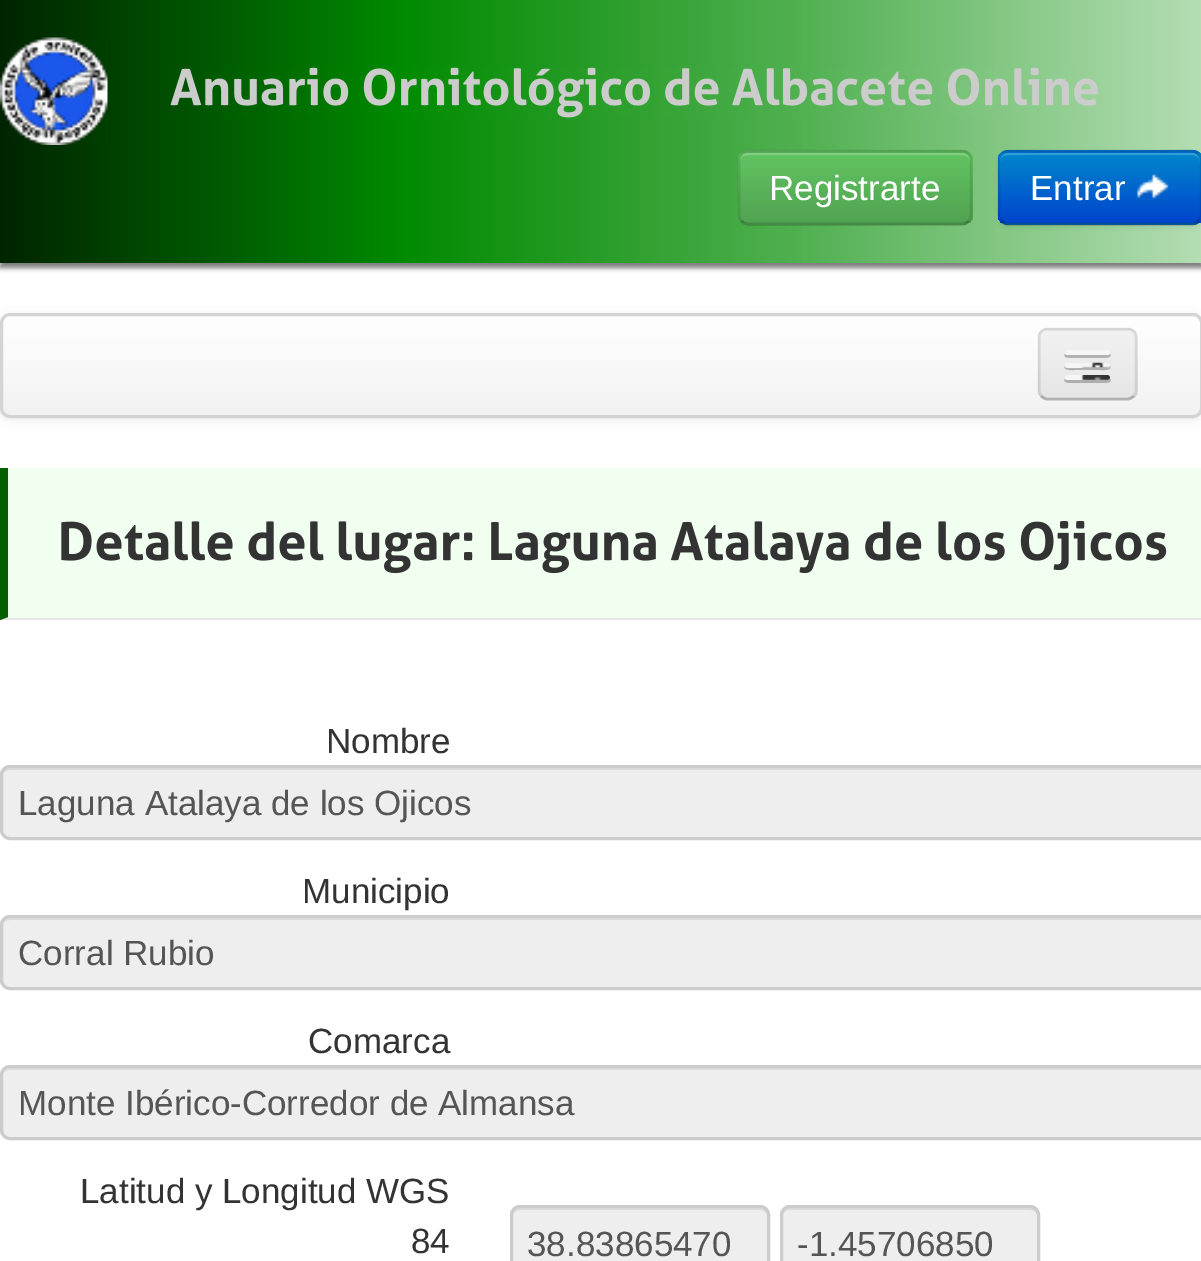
%!PS-Adobe-3.0
%%BoundingBox: 0 0 1201 1261
%%LanguageLevel: 3
%%Pages: 1
%%EndComments
%%BeginProlog
/m { moveto } bind def
/l { lineto } bind def
/c { curveto } bind def
/h { closepath } bind def
/f { fill } bind def
/S { stroke } bind def
/q { gsave } bind def
/Q { grestore } bind def
/w { setlinewidth } bind def
/fn { [ exch dup neg 0 0 3 -1 roll 0 0 ] selectfont } def
/tx { moveto show } def
/bx { rectfill } def
/al { dup .setfillconstantalpha .setstrokeconstantalpha } def
/rr { 5 dict begin { /r /h /w /y /x } { exch def } forall
  x r add y moveto x w add y 2 copy h add r arct x w add y h add x 1 index r arct
  x y h add x y r arct x y 2 copy exch w add exch r arct closepath end } def
/sh { 12 dict begin { /a /b /q /h /w /y /x } { exch def } forall gsave /was 0 def
  9 -2 -9 { dup b mul 4 div /e exch def 1 sub .425 mul 2.718 exch exp 1 add a .99 .min exch div /now exch def
    1 1 now sub 1 was sub div sub al /was now def
    w h .min e 2 mul add 0 gt { x e sub y e sub w e 2 mul add h e 2 mul add
      q e add b .6 mul add w h .min 2 div e add .min 0 .max rr fill } if } for grestore end } def
/im { 5 dict begin { /h /w /y /x /name } { exch def } forall
  gsave x y translate w h scale
  w h 8 [w 0 0 h 0 0] name (r) file false 3 colorimage grestore end } def
%%EndProlog
%%BeginSetup
<< /PageSize [1201 1261] /PageUsesTransparency true >> setpagedevice
%%EndSetup
%%Page: 1 1
0 .pushpdf14devicefilter
0 1261 translate 1 -1 scale
4 setmiterlimit
1 setgray
0 0 1201 1261 bx
0 setgray
0 5 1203 263 0 2.5 0.52 sh
q 0 0 m 1201 0 l 1201 263 l 0 263 l h clip newpath
<< /ShadingType 2 /ColorSpace /DeviceRGB /Coords [0 131 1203 131] /Extend [true true] /Function << /FunctionType 3 /Domain [0 1] /Functions [<< /FunctionType 2 /Domain [0 1] /C0 [0 0.141 0] /C1 [0 0.341 0] /N 1 >> << /FunctionType 2 /Domain [0 1] /C0 [0 0.341 0] /C1 [0 0.541 0] /N 1 >> << /FunctionType 2 /Domain [0 1] /C0 [0 0.541 0] /C1 [0.322 0.694 0.322] /N 1 >> << /FunctionType 2 /Domain [0 1] /C0 [0.322 0.694 0.322] /C1 [0.514 0.78 0.514] /N 1 >> << /FunctionType 2 /Domain [0 1] /C0 [0.514 0.78 0.514] /C1 [0.706 0.867 0.706] /N 1 >>] /Bounds [0.17 0.33 0.67 0.83] /Encode [0 1 0 1 0 1 0 1 0 1] >> >> shfill Q
(image0.raw) 0 37 108 108 im
(image1.raw) 170 67 928 51 im
0.357 0.718 0.357 setrgbcolor
738 150 235 75 10 rr f
q
738 150 235 75 10 rr clip newpath
q 738 153 m 973 153 l 973 223 l 738 223 l h clip newpath
<< /ShadingType 2 /ColorSpace /DeviceRGB /Coords [855 152 855 223] /Extend [true true] /Function << /FunctionType 2 /Domain [0 1] /C0 [0.384 0.769 0.384] /C1 [0.318 0.639 0.318] /N 1 >> >> shfill Q
Q
0.506 0.812 0.506 setrgbcolor
748 155 m 962 155 l 967 155 970 158 970 162 c 970 161 l 970 157 966 153 962 153 c 748 153 l 744 153 740 157 740 161 c 740 162 l 740 158 743 155 748 155 c h f
0.25 al
0 setgray
2.5 w
968.5 221 m 967 223 965 224 962.5 224 c 747.5 224 l 745 224 743 223 741.5 221 c S
0.1 al
741.5 221 m 739.5 219.5 739 217.5 739 215 c 739 160 l 739 157.5 739.5 155.5 741.5 154 c 743 152 745 151 747.5 151 c 962.5 151 l 965 151 967 152 968.5 154 c 970.5 155.5 971 157.5 971 160 c 971 215 l 971 217.5 970.5 219.5 968.5 221 c S
/LiberationSans-Regular 35 fn
1 al
1 setgray
(Registrarte) 769 200 tx
0 setgray
998 153 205 75 10 2.5 0.05 sh
0 0.427 0.8 setrgbcolor
998 150 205 75 10 rr f
q
998 150 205 75 10 rr clip newpath
q 998 153 m 1201 153 l 1201 223 l 998 223 l h clip newpath
<< /ShadingType 2 /ColorSpace /DeviceRGB /Coords [1100 152 1100 223] /Extend [true true] /Function << /FunctionType 2 /Domain [0 1] /C0 [0 0.533 0.8] /C1 [0 0.267 0.8] /N 1 >> >> shfill Q
Q
0.2 al
1 setgray
1008 155 m 1192 155 l 1197 155 1200 158 1200 162 c 1200 161 l 1200 157 1196 153 1192 153 c 1008 153 l 1004 153 1000 157 1000 161 c 1000 162 l 1000 158 1003 155 1008 155 c h f
0.25 al
0 setgray
1198.5 221 m 1197 223 1195 224 1192.5 224 c 1007.5 224 l 1005 224 1003 223 1001.5 221 c S
0.1 al
1001.5 221 m 997.5 217.5 999 210.5 999 206 c 999 187.5 l 999 145 993 151 1038.5 151 c 1161.5 151 l 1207 151 1201 145 1201 187.5 c 1201 206 l 1201 210.5 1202.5 217.5 1198.5 221 c S
1 al
1 setgray
(Entrar) 1030 200 tx
(image2.raw) 1136 174 33 27 im
q
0 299 m 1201 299 l 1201 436 l 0 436 l h 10 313 m 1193 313 l 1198.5 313 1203 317.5 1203 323 c 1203 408 l 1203 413.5 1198.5 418 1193 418 c 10 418 l 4.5 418 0 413.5 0 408 c 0 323 l 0 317.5 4.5 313 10 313 c h eoclip newpath
0 setgray
0 315 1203 105 10 5 0.07 sh
Q
q
0 313 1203 105 10 rr clip newpath
q 0 315 m 1201 315 l 1201 415 l 0 415 l h clip newpath
<< /ShadingType 2 /ColorSpace /DeviceRGB /Coords [601 315 601 415] /Extend [true true] /Function << /FunctionType 2 /Domain [0 1] /C0 [1 1 1] /C1 [0.949 0.949 0.949] /N 1 >> >> shfill Q
Q
0.831 setgray
3 w
1.5 314.5 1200 102 8.5 rr S
0.929 setgray
1038 328 100 72 10 rr f
q
1038 328 100 72 10 rr clip newpath
q 1038 330 m 1138 330 l 1138 398 l 1038 398 l h clip newpath
<< /ShadingType 2 /ColorSpace /DeviceRGB /Coords [1088 330 1088 398] /Extend [true true] /Function << /FunctionType 2 /Domain [0 1] /C0 [0.949 0.949 0.949] /C1 [0.898 0.898 0.898] /N 1 >> >> shfill Q
Q
0.25 al
0 setgray
2.5 w
1133.5 396 m 1132 398 1130 399 1127.5 399 c 1047.5 399 l 1045 399 1043 398 1041.5 396 c S
0.1 al
1041.5 396 m 1039.5 394.5 1039 392.5 1039 390 c 1039 337.5 l 1039 335 1039.5 333 1041.5 331.5 c 1043 329.5 1045 329 1047.5 329 c 1127.5 329 l 1130 329 1132 329.5 1133.5 331.5 c 1135.5 333 1136 335 1136 337.5 c 1136 390 l 1136 392.5 1135.5 394.5 1133.5 396 c S
1 al
0.698 setgray
1065 354 m 1062 358 1070 358 1074 358 c 1101 358 l 1105 358 1113 358 1110 354 c 1108 355 l 1067 355 l h f
0.961 setgray
1065 350 45 5 2.5 rr f
0.69 setgray
1065 366 m 1062 371 1074 370 1074 370 c 1101 370 l 1101 370 1113 371 1110 366 c 1109 367 1108 368 1108 368 c 1068 368 l 1067 368 1066 367 1065 366 c h f
0.961 setgray
1065 363 45 5 2.5 rr f
(image3.raw) 1082 362 28 6 im
0.682 setgray
1065 379 m 1062 383 1070 383 1074 383 c 1101 383 l 1105 383 1113 383 1110 379 c 1108 380 l 1067 380 l h f
0.961 setgray
1065 375 45 5 2.5 rr f
(image4.raw) 1081 375 29 5 im
0.941 1 0.941 setrgbcolor
0 468 1201 152 bx
0.898 setgray
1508 620 m 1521 620 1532 609 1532 595 c 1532 607 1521 618 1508 618 c 8 618 l 8 617 l 0 620 l h f
0 0.365 0 setrgbcolor
8 468 m 0 468 l 0 620 l 8 617 l h f
(image5.raw) 61 521 412 53 im
(image6.raw) 491 520 676 54 im
0.2 setgray
(Nombre) 326 753 tx
0.933 setgray
10 765 m 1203 765 l 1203 840 l 10 840 l 4.5 840 0 835.5 0 830 c 0 775 l 0 769.5 4.5 765 10 765 c h f
0.863 setgray
10 770 m 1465 770 l 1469 770 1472 773 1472 778 c 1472 834 l 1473 833 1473 832 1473 830 c 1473 776 l 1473 772 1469 768 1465 768 c 11 768 l 8 768 5 770 3 773 c 5 771 8 770 10 770 c h f
0.8 setgray
3 w
1.5 766.5 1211 72 8.5 rr S
0.333 setgray
(Laguna Atalaya de los Ojicos) 18 815 tx
0.2 setgray
(Municipio) 302 903 tx
0.933 setgray
10 915 m 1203 915 l 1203 990 l 10 990 l 4.5 990 0 985.5 0 980 c 0 925 l 0 919.5 4.5 915 10 915 c h f
0.863 setgray
10 920 m 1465 920 l 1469 920 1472 923 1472 928 c 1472 984 l 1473 983 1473 982 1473 980 c 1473 926 l 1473 922 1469 918 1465 918 c 11 918 l 8 918 5 920 3 923 c 5 921 8 920 10 920 c h f
0.8 setgray
1.5 916.5 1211 72 8.5 rr S
0.333 setgray
(Corral Rubio) 18 965 tx
0.2 setgray
(Comarca) 308 1053 tx
0.933 setgray
10 1065 m 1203 1065 l 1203 1140 l 10 1140 l 4.5 1140 0 1135.5 0 1130 c 0 1075 l 0 1069.5 4.5 1065 10 1065 c h f
0.863 setgray
10 1070 m 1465 1070 l 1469 1070 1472 1073 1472 1078 c 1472 1134 l 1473 1133 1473 1132 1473 1130 c 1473 1076 l 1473 1072 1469 1068 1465 1068 c 11 1068 l 8 1068 5 1070 3 1073 c 5 1071 8 1070 10 1070 c h f
0.8 setgray
1.5 1066.5 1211 72 8.5 rr S
0.333 setgray
(Monte Ibérico-Corredor de Almansa) 18 1115 tx
0.2 setgray
(Latitud y Longitud WGS) 80 1203 tx
(84) 411 1253 tx
0.933 setgray
510 1205 260 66 10 rr f
0.863 setgray
520 1210 m 760 1210 l 764 1210 768 1213 768 1218 c 768 1216 l 768 1212 764 1208 760 1208 c 521 1208 l 518 1208 515 1210 513 1213 c 515 1211 518 1210 520 1210 c h f
0.8 setgray
511.5 1206.5 257 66 8.5 rr S
0.333 setgray
(38.83865470) 527 1256 tx
0.933 setgray
780 1205 260 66 10 rr f
0.863 setgray
790 1210 m 1030 1210 l 1034 1210 1038 1213 1038 1218 c 1038 1216 l 1038 1212 1034 1208 1030 1208 c 791 1208 l 788 1208 785 1210 783 1213 c 785 1211 788 1210 790 1210 c h f
0.8 setgray
781.5 1206.5 257 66 8.5 rr S
0.333 setgray
(-1.45706850) 797 1256 tx
.poppdf14devicefilter showpage
%%EOF
